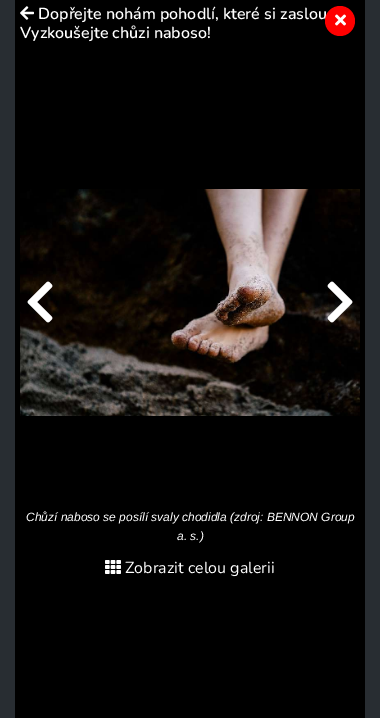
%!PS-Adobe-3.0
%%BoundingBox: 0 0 380 718
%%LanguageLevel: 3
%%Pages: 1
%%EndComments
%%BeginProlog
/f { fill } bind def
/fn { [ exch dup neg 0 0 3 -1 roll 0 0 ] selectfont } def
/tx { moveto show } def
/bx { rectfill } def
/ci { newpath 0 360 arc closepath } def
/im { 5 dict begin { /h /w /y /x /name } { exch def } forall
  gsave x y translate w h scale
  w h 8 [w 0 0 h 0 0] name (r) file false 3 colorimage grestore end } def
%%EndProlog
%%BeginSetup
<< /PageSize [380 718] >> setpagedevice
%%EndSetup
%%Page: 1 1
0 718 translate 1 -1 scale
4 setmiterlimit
0.157 0.176 0.196 setrgbcolor
0 0 380 718 bx
0 setgray
15 0 350 718 bx
(image0.raw) 20 6 14 14 im
/Nunito-SemiBold 16 fn
1 setgray
(Dopřejte nohám pohodlí, které si zaslou) 38 19 tx
(Vyzkoušejte chůzi naboso!) 20 38 tx
1 0 0 setrgbcolor
340 21 15 ci f
(image1.raw) 335 14 11 12 im
(image4.raw) 20 189 340 227 im
(image2.raw) 27 281 26 42 im
(image3.raw) 327 281 26 42 im
/LiberationSans-Italic 12 fn
1 setgray
(Chůzí naboso se posílí svaly chodidla \(zdroj: BENNON Group) 26 521 tx
(a. s.\)) 177 540 tx
(image5.raw) 105 560 16 14 im
/Nunito-Regular 16 fn
(Zobrazit celou galerii) 125 573 tx
showpage
%%EOF
